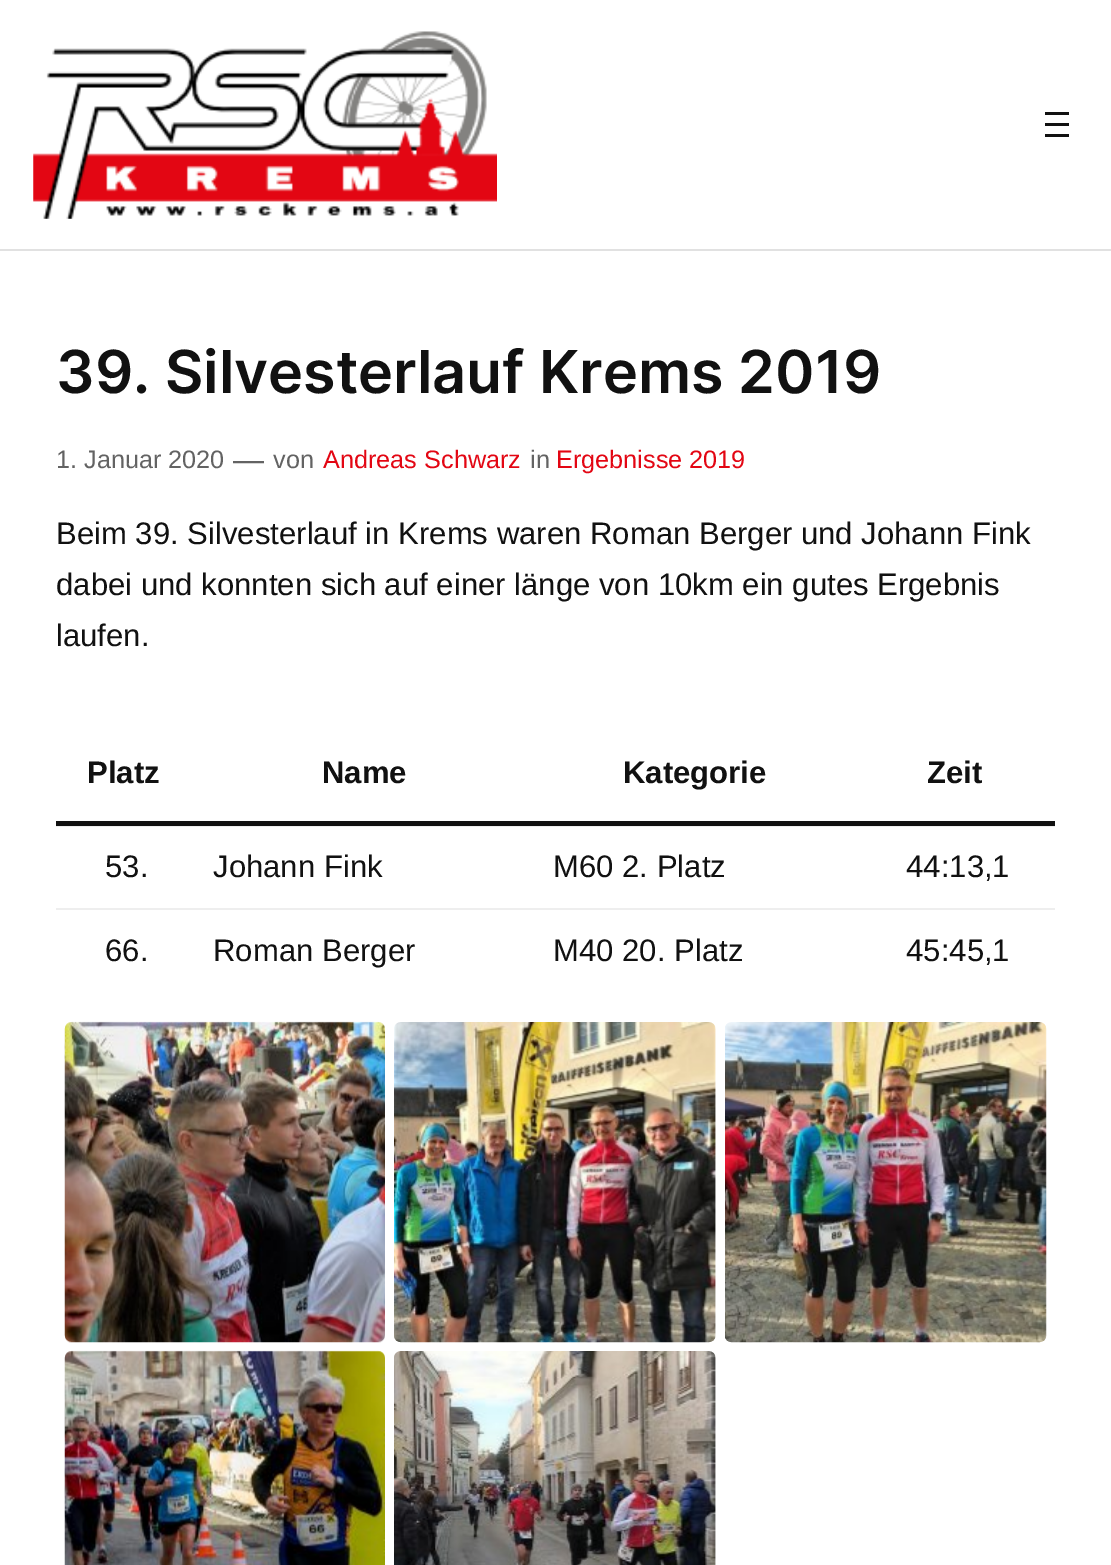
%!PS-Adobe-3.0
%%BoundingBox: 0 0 1111 1565
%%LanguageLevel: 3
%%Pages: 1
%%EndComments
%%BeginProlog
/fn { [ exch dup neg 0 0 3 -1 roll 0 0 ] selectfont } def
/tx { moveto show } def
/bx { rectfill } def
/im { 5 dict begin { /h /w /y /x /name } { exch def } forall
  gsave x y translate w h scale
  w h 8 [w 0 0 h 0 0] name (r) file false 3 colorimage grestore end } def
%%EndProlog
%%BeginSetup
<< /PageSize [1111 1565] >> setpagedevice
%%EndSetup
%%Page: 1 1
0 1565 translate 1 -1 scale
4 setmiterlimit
1 setgray
0 0 1111 1565 bx
0.882 setgray
0 249 1111 2 bx
(image0.raw) 33 31 464 188 im
0.067 setgray
1045 112 24 3 bx
1045 123 24 3 bx
1045 134 24 3 bx
/Inter-SemiBold 59.2 fn
(39. Silvesterlauf Krems 2019) 56 393 tx
/LiberationSans-Regular 25.25 fn
0.388 setgray
(1. Januar 2020) 56 468 tx
/LiberationSans-Regular 31.1 fn
(—) 233 470 tx
/LiberationSans-Regular 25.25 fn
(von) 273 468 tx
0.89 0.024 0.075 setrgbcolor
(Andreas Schwarz) 323 468 tx
0.388 setgray
(in) 530 468 tx
0.89 0.024 0.075 setrgbcolor
(Ergebnisse 2019) 556 468 tx
/LiberationSans-Regular 31.1 fn
0.067 setgray
(Beim 39. Silvesterlauf in Krems waren Roman Berger und Johann Fink) 56 544 tx
(dabei und konnten sich auf einer länge von 10km ein gutes Ergebnis) 56 595 tx
(laufen.) 56 646 tx
56 821 999 5 bx
/LiberationSans-Bold 31.1 fn
(Platz) 87 783 tx
(Name) 322 783 tx
(Kategorie) 623 783 tx
0.933 setgray
56 826 999 1 bx
0.067 setgray
(Zeit) 927 783 tx
0.933 setgray
56 908 999 2 bx
/LiberationSans-Regular 31.1 fn
0.067 setgray
(53.) 105 877 tx
(Johann Fink) 213 877 tx
(M60 2. Platz) 553 877 tx
(44:13,1) 906 877 tx
(66.) 105 961 tx
(Roman Berger) 213 961 tx
(M40 20. Platz) 553 961 tx
(45:45,1) 906 961 tx
(image1.raw) 64 1021 321 322 im
(image2.raw) 394 1022 322 321 im
(image3.raw) 725 1022 322 321 im
(image4.raw) 64 1350 321 215 im
(image5.raw) 394 1351 322 214 im
showpage
%%EOF
